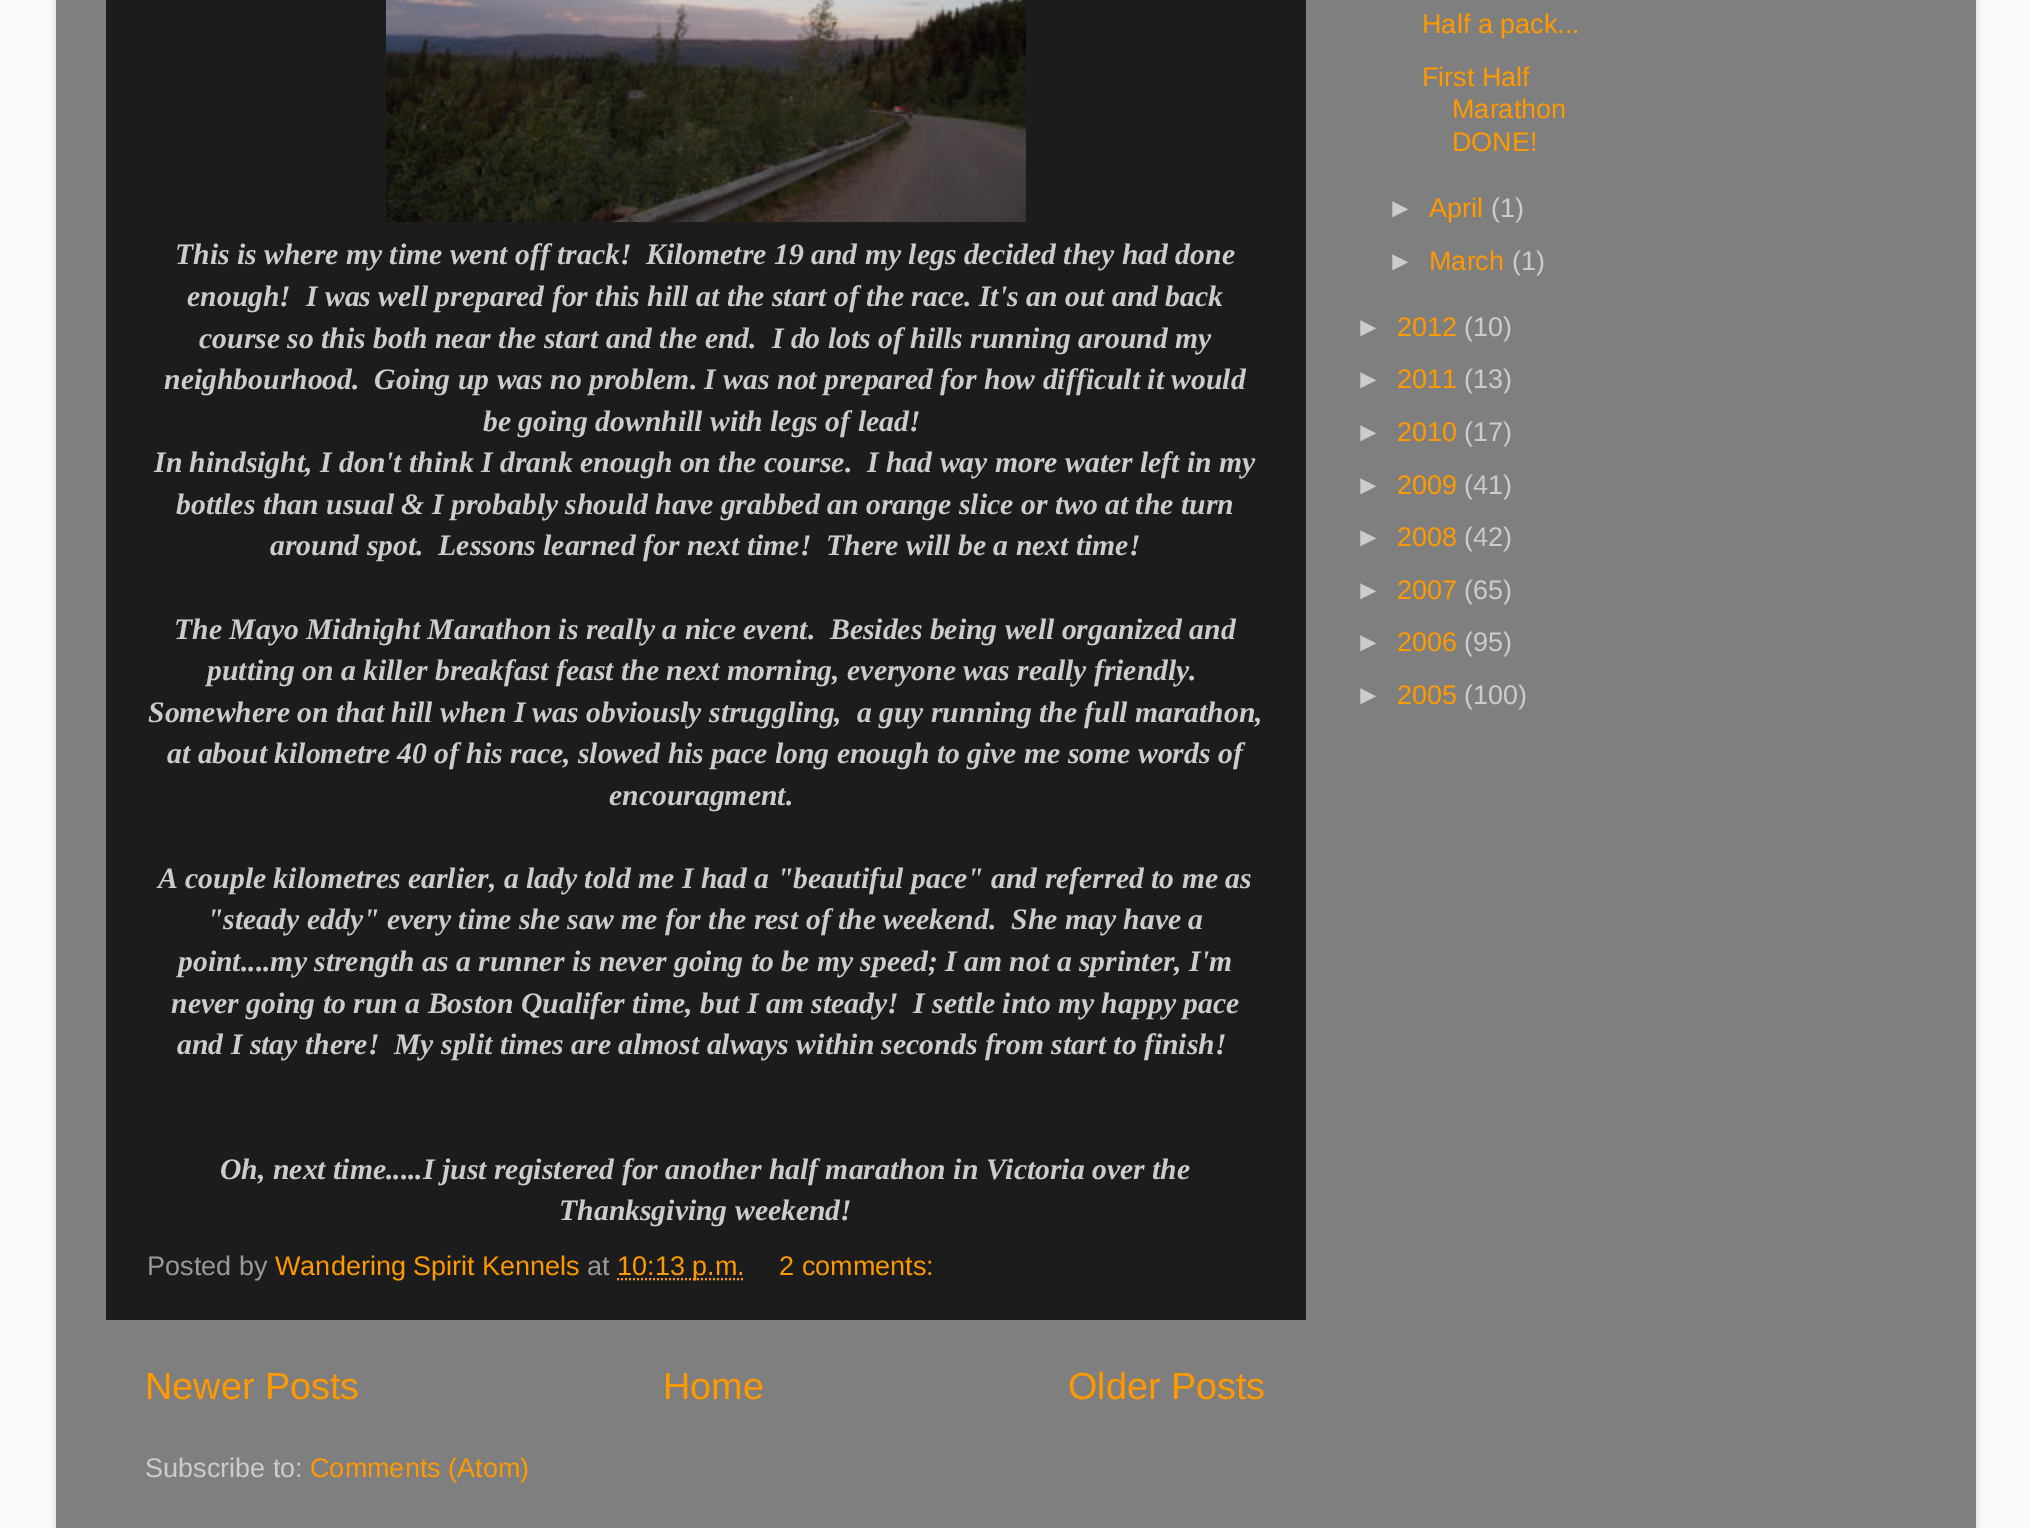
%!PS-Adobe-3.0
%%BoundingBox: 0 0 2030 1528
%%LanguageLevel: 3
%%Pages: 1
%%EndComments
%%BeginProlog
/m { moveto } bind def
/l { lineto } bind def
/S { stroke } bind def
/w { setlinewidth } bind def
/fn { [ exch dup neg 0 0 3 -1 roll 0 0 ] selectfont } def
/tx { moveto show } def
/bx { rectfill } def
/al { dup .setfillconstantalpha .setstrokeconstantalpha } def
/rr { 5 dict begin { /r /h /w /y /x } { exch def } forall
  x r add y moveto x w add y 2 copy h add r arct x w add y h add x 1 index r arct
  x y h add x y r arct x y 2 copy exch w add exch r arct closepath end } def
/sh { 12 dict begin { /a /b /q /h /w /y /x } { exch def } forall gsave /was 0 def
  9 -2 -9 { dup b mul 4 div /e exch def 1 sub .425 mul 2.718 exch exp 1 add a .99 .min exch div /now exch def
    1 1 now sub 1 was sub div sub al /was now def
    w h .min e 2 mul add 0 gt { x e sub y e sub w e 2 mul add h e 2 mul add
      q e add b .6 mul add w h .min 2 div e add .min 0 .max rr fill } if } for grestore end } def
/im { 5 dict begin { /h /w /y /x /name } { exch def } forall
  gsave x y translate w h scale
  w h 8 [w 0 0 h 0 0] name (r) file false 3 colorimage grestore end } def
%%EndProlog
%%BeginSetup
<< /PageSize [2030 1528] /PageUsesTransparency true >> setpagedevice
%%EndSetup
%%Page: 1 1
0 .pushpdf14devicefilter
0 1528 translate 1 -1 scale
4 setmiterlimit
0.98 setgray
0 0 2030 1528 bx
0 setgray
56 -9 1920 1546 0 3 0.15 sh
0.498 setgray
56 0 1920 1528 bx
0.11 setgray
106 0 1200 1320 bx
(image0.raw) 386 0 640 222 im
/LiberationSerif-BoldItalic 29.7 fn
0.8 setgray
(This is where my time went off track!  Kilometre 19 and my legs decided they had done) 175 264 tx
(enough!  I was well prepared for this hill at the start of the race. It's an out and back) 187 306 tx
(course so this both near the start and the end.  I do lots of hills running around my) 199 348 tx
(neighbourhood.  Going up was no problem. I was not prepared for how difficult it would) 164 389 tx
(be going downhill with legs of lead!) 483 431 tx
(In hindsight, I don't think I drank enough on the course.  I had way more water left in my) 154 472 tx
(bottles than usual & I probably should have grabbed an orange slice or two at the turn) 176 514 tx
(around spot.  Lessons learned for next time!  There will be a next time!) 270 555 tx
(The Mayo Midnight Marathon is really a nice event.  Besides being well organized and) 174 639 tx
(putting on a killer breakfast feast the next morning, everyone was really friendly.) 207 680 tx
(Somewhere on that hill when I was obviously struggling,  a guy running the full marathon,) 148 722 tx
(at about kilometre 40 of his race, slowed his pace long enough to give me some words of) 167 763 tx
(encouragment.) 609 805 tx
(A couple kilometres earlier, a lady told me I had a "beautiful pace" and referred to me as) 158 888 tx
("steady eddy" every time she saw me for the rest of the weekend.  She may have a) 207 929 tx
(point....my strength as a runner is never going to be my speed; I am not a sprinter, I'm) 178 971 tx
(never going to run a Boston Qualifer time, but I am steady!  I settle into my happy pace) 171 1013 tx
(and I stay there!  My split times are almost always within seconds from start to finish!) 177 1054 tx
(Oh, next time.....I just registered for another half marathon in Victoria over the) 220 1179 tx
(Thanksgiving weekend!) 559 1220 tx
/LiberationSans-Regular 27 fn
0.6 setgray
(Posted by) 147 1275 tx
1 0.6 0 setrgbcolor
(Wandering Spirit Kennels) 275 1275 tx
0.6 setgray
(at) 587 1275 tx
1 0.6 0 setrgbcolor
2 w
[2 2] 0 setdash
617 1279 m 744.5 1279 l S
(10:13 p.m.) 617 1275 tx
(2 comments:) 779 1275 tx
/LiberationSans-Regular 37.75 fn
(Newer Posts) 145 1399 tx
(Home) 663 1399 tx
(Older Posts) 1068 1399 tx
/LiberationSans-Regular 27 fn
0.8 setgray
(Subscribe to:) 145 1477 tx
1 0.6 0 setrgbcolor
(Comments \(Atom\)) 310 1477 tx
(Half a pack...) 1422 33 tx
(First Half) 1422 86 tx
(Marathon) 1452 118 tx
(DONE!) 1452 151 tx
0.8 setgray
(►) 1387 217 tx
1 0.6 0 setrgbcolor
(April) 1429 217 tx
0.8 setgray
(\(1\)) 1491 217 tx
(►) 1387 270 tx
1 0.6 0 setrgbcolor
(March) 1429 270 tx
0.8 setgray
(\(1\)) 1512 270 tx
(►) 1355 336 tx
1 0.6 0 setrgbcolor
(2012) 1397 336 tx
0.8 setgray
(\(10\)) 1464 336 tx
(►) 1355 388 tx
1 0.6 0 setrgbcolor
(2011) 1397 388 tx
0.8 setgray
(\(13\)) 1464 388 tx
(►) 1355 441 tx
1 0.6 0 setrgbcolor
(2010) 1397 441 tx
0.8 setgray
(\(17\)) 1464 441 tx
(►) 1355 494 tx
1 0.6 0 setrgbcolor
(2009) 1397 494 tx
0.8 setgray
(\(41\)) 1464 494 tx
(►) 1355 546 tx
1 0.6 0 setrgbcolor
(2008) 1397 546 tx
0.8 setgray
(\(42\)) 1464 546 tx
(►) 1355 599 tx
1 0.6 0 setrgbcolor
(2007) 1397 599 tx
0.8 setgray
(\(65\)) 1464 599 tx
(►) 1355 651 tx
1 0.6 0 setrgbcolor
(2006) 1397 651 tx
0.8 setgray
(\(95\)) 1464 651 tx
(►) 1355 704 tx
1 0.6 0 setrgbcolor
(2005) 1397 704 tx
0.8 setgray
(\(100\)) 1464 704 tx
.poppdf14devicefilter showpage
%%EOF
